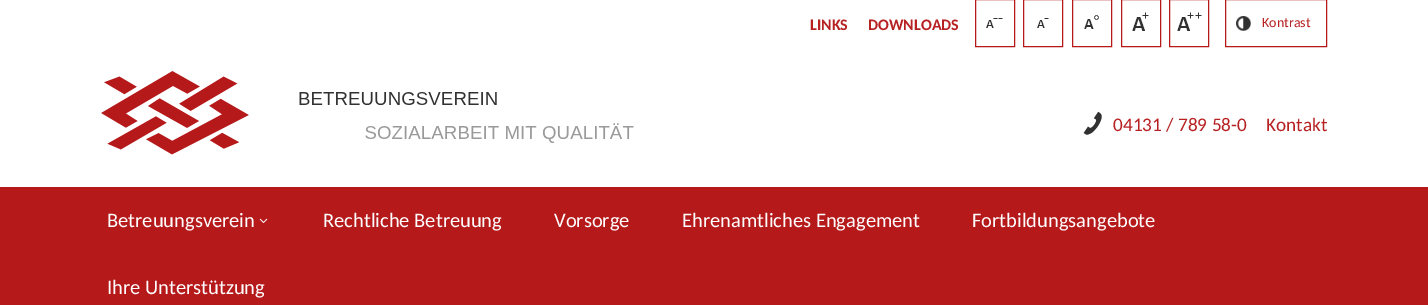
%!PS-Adobe-3.0
%%BoundingBox: 0 0 1428 305
%%LanguageLevel: 3
%%Pages: 1
%%EndComments
%%BeginProlog
/fn { [ exch dup neg 0 0 3 -1 roll 0 0 ] selectfont } def
/tx { moveto show } def
/bx { rectfill } def
/im { 5 dict begin { /h /w /y /x /name } { exch def } forall
  gsave x y translate w h scale
  w h 8 [w 0 0 h 0 0] name (r) file false 3 colorimage grestore end } def
%%EndProlog
%%BeginSetup
<< /PageSize [1428 305] >> setpagedevice
%%EndSetup
%%Page: 1 1
0 305 translate 1 -1 scale
4 setmiterlimit
1 setgray
0 0 1428 305 bx
(image0.raw) 101 71 533 84 im
/Carlito-Bold 16 fn
0.718 0.129 0.133 setrgbcolor
(LINKS) 810 30 tx
(DOWNLOADS) 868 30 tx
(image1.raw) 986 18 17 10 im
0.71 0.098 0.102 setrgbcolor
975.5 -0.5 39 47 rectstroke
(image2.raw) 1037 18 12 10 im
1023.5 -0.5 39 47 rectstroke
(image3.raw) 1084 15 15 14 im
1072.5 -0.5 39 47 rectstroke
(image4.raw) 1132 12 17 19 im
1121.5 -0.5 39 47 rectstroke
(image5.raw) 1177 12 25 19 im
1169.5 -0.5 39 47 rectstroke
(image6.raw) 1236 16 15 15 im
1225.5 -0.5 101 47 rectstroke
/Carlito-Regular 14 fn
0.718 0.129 0.133 setrgbcolor
(Kontrast) 1262 27 tx
(image7.raw) 1083 111 19 24 im
/Carlito-Regular 19.25 fn
(04131 / 789 58-0) 1113 131 tx
(Kontakt) 1266 131 tx
0.71 0.098 0.102 setrgbcolor
0 187 1428 118 bx
/Carlito-Regular 20.5 fn
1 setgray
(Betreuungsverein) 107 227 tx
(image8.raw) 259 218 9 5 im
(Rechtliche Betreuung) 323 227 tx
(Vorsorge) 554 227 tx
(Ehrenamtliches Engagement) 682 227 tx
(Fortbildungsangebote) 972 227 tx
(Ihre Unterstützung) 107 294 tx
showpage
%%EOF
